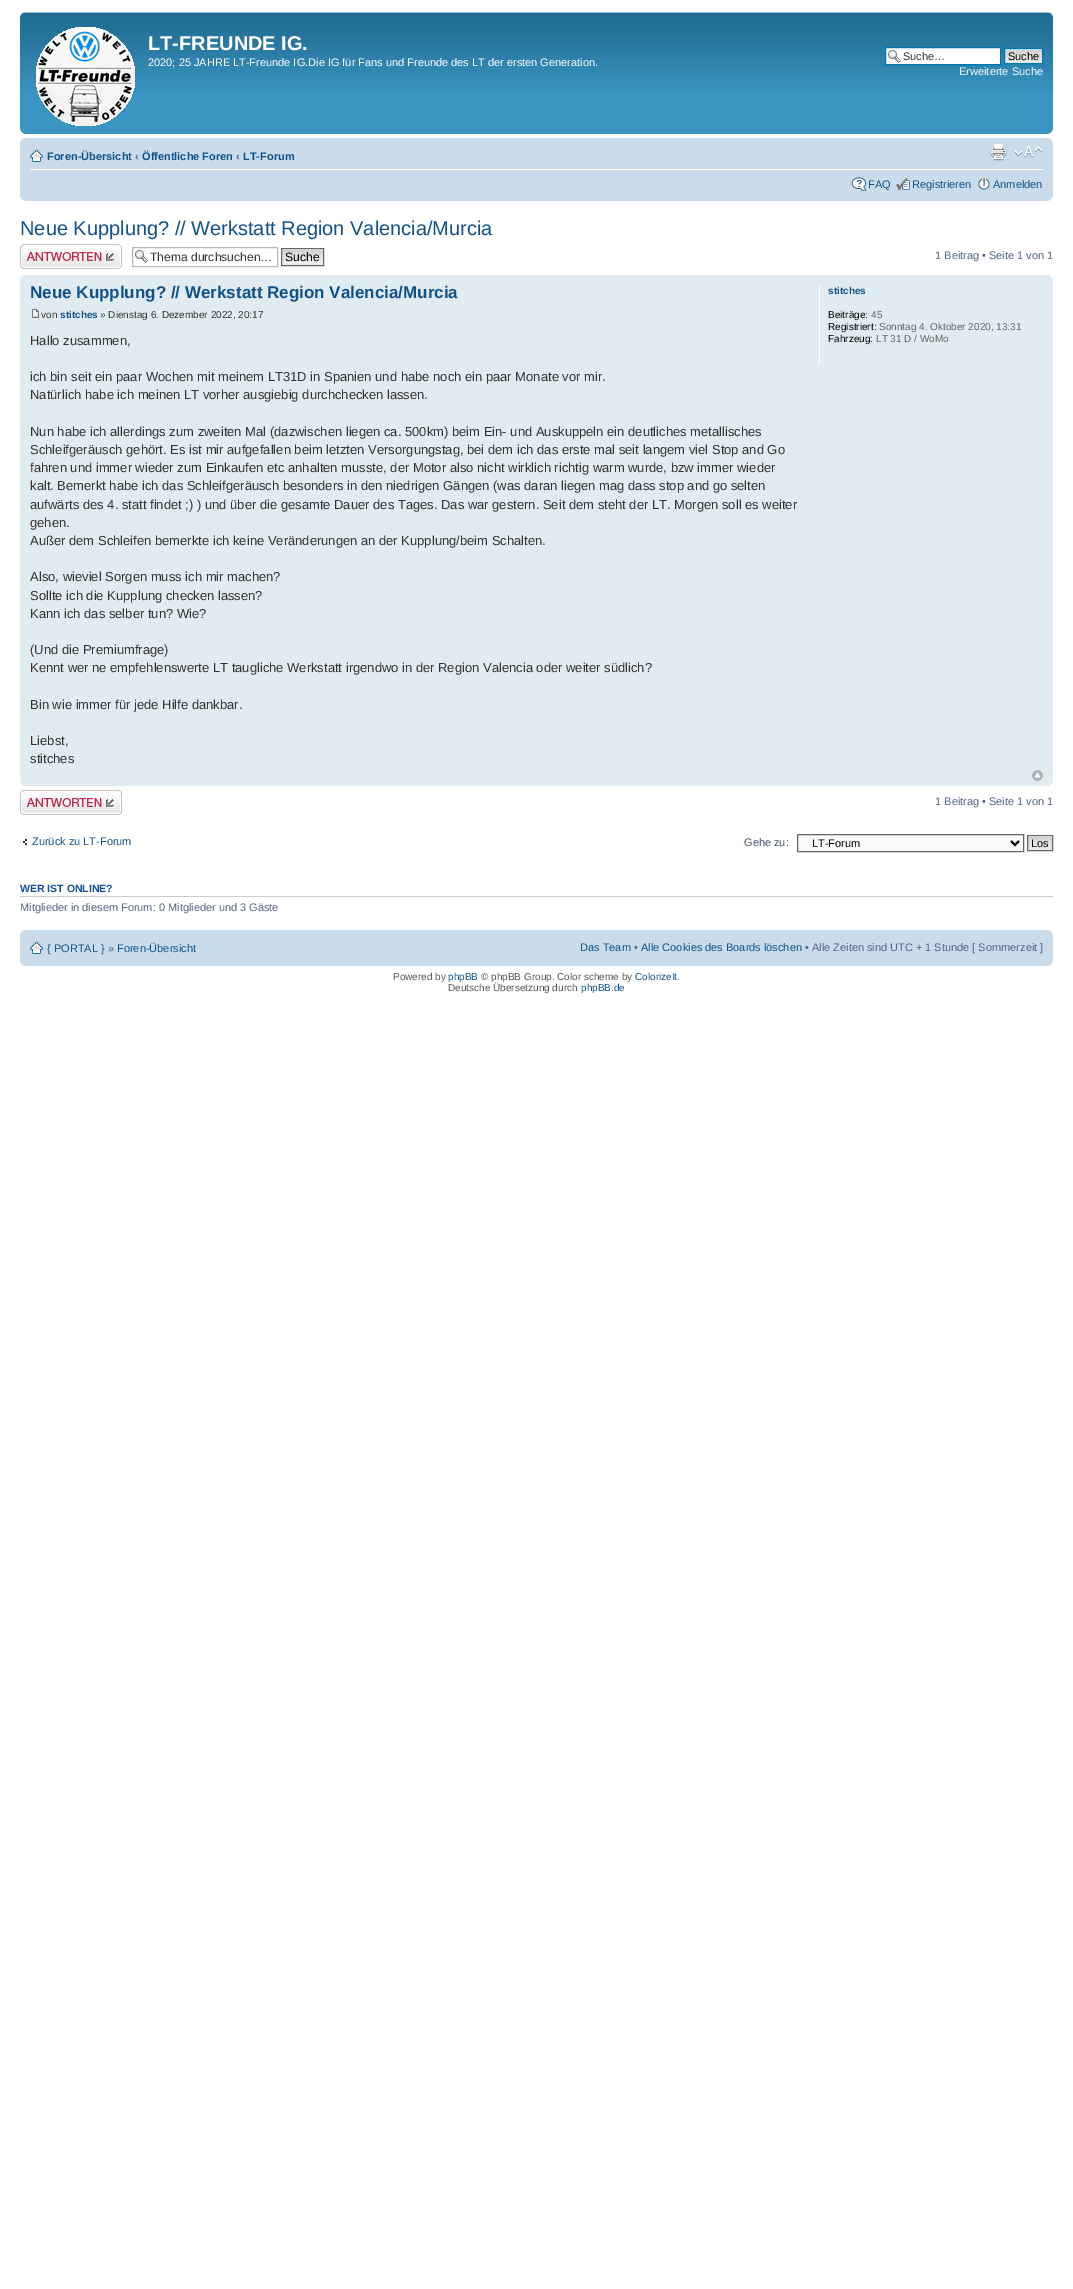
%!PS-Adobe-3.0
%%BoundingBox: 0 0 1073 2289
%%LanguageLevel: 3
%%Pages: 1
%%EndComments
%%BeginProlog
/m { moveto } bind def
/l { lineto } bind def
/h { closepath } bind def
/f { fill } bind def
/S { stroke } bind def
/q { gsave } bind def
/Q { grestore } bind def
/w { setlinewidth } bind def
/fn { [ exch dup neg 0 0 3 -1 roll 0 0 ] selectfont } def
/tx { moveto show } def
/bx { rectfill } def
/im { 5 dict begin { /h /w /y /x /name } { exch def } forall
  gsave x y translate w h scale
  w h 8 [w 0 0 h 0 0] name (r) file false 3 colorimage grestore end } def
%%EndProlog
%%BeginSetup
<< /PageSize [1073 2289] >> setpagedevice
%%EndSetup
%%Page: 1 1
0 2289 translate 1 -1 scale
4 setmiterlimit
1 setgray
0 0 1073 2289 bx
0.227 0.584 0.765 setrgbcolor
20 93 1033 41 bx
(image0.raw) 20 12 1033 81 im
(image1.raw) 20 12 5 5 im
(image2.raw) 1048 12 5 5 im
(image3.raw) 36 27 99 99 im
/LiberationSans-Bold 20 fn
1 setgray
(LT-FREUNDE IG.) 148 50 tx
/LiberationSans-Regular 11 fn
(2020; 25 JAHRE LT-Freunde IG.Die IG für Fans und Freunde des LT der ersten Generation.) 148 66 tx
886 48 114 16 bx
(image4.raw) 888 50 13 13 im
0 0.459 0.69 setrgbcolor
885.5 47.5 115 17 rectstroke
0.2 setgray
(Suche…) 903 60 tx
(image5.raw) 1005 49 37 14 im
0 0.459 0.69 setrgbcolor
1004.5 48.5 38 15 rectstroke
0 setgray
(Suche) 1008 60 tx
1 setgray
(Erweiterte Suche) 959 75 tx
(image6.raw) 20 129 5 5 im
(image7.raw) 1048 129 5 5 im
0.792 0.863 0.922 setrgbcolor
20 138 1033 63 bx
(image8.raw) 20 138 5 5 im
(image9.raw) 1048 138 5 5 im
1 setgray
30 169 1013 1 bx
(image10.raw) 30 150 13 12 im
/LiberationSans-Bold 11 fn
0.063 0.322 0.537 setrgbcolor
(Foren-Übersicht) 47 160 tx
0.325 0.392 0.51 setrgbcolor
(‹) 135 160 tx
0.063 0.322 0.537 setrgbcolor
(Öffentliche Foren) 142 160 tx
0.325 0.392 0.51 setrgbcolor
(‹) 236 160 tx
0.063 0.322 0.537 setrgbcolor
(LT-Forum) 243 160 tx
(image11.raw) 990 144 17 17 im
(image12.raw) 1014 146 29 12 im
(image13.raw) 851 177 16 14 im
/LiberationSans-Regular 11 fn
(FAQ) 868 188 tx
(image14.raw) 896 178 14 13 im
(Registrieren) 912 188 tx
(image15.raw) 978 178 12 12 im
(Anmelden) 993 188 tx
(image16.raw) 20 196 5 5 im
(image17.raw) 1048 196 5 5 im
/LiberationSans-Regular 20 fn
(Neue Kupplung? // Werkstatt Region Valencia/Murcia) 20 235 tx
(image18.raw) 20 244 102 25 im
(image4.raw) 135 250 13 13 im
0.706 0.729 0.753 setrgbcolor
132.5 247.5 145 19 rectstroke
/LiberationSans-Regular 12.1 fn
0.2 setgray
(Thema durchsuchen…) 150 261 tx
(image19.raw) 282 249 41 16 im
0.4 setgray
281.5 248.5 42 17 rectstroke
0 setgray
(Suche) 285 261 tx
/LiberationSans-Regular 11 fn
0.325 0.392 0.51 setrgbcolor
(1 Beitrag • Seite 1 von 1) 935 259 tx
0.882 0.922 0.949 setrgbcolor
20 275 1033 511 bx
(image20.raw) 20 275 5 5 im
(image21.raw) 1048 275 5 5 im
/LiberationSans-Bold 17 fn
0.063 0.322 0.537 setrgbcolor
(Neue Kupplung? // Werkstatt Region Valencia/Murcia) 30 298 tx
(image22.raw) 32 309 7 9 im
/LiberationSans-Regular 10 fn
0.2 setgray
(von) 41 318 tx
/LiberationSans-Bold 10 fn
0.063 0.322 0.537 setrgbcolor
(stitches) 60 318 tx
/LiberationSans-Regular 10 fn
0.2 setgray
(» Dienstag 6. Dezember 2022, 20:17) 100 318 tx
/LiberationSans-Regular 13 fn
(Hallo zusammen,) 30 345 tx
(ich bin seit ein paar Wochen mit meinem LT31D in Spanien und habe noch ein paar Monate vor mir.) 30 381 tx
(Natürlich habe ich meinen LT vorher ausgiebig durchchecken lassen.) 30 399 tx
(Nun habe ich allerdings zum zweiten Mal \(dazwischen liegen ca. 500km\) beim Ein- und Auskuppeln ein deutliches metallisches) 30 436 tx
(Schleifgeräusch gehört. Es ist mir aufgefallen beim letzten Versorgungstag, bei dem ich das erste mal seit langem viel Stop and Go) 30 454 tx
(fahren und immer wieder zum Einkaufen etc anhalten musste, der Motor also nicht wirklich richtig warm wurde, bzw immer wieder) 30 472 tx
(kalt. Bemerkt habe ich das Schleifgeräusch besonders in den niedrigen Gängen \(was daran liegen mag dass stop and go selten) 30 490 tx
(aufwärts des 4. statt findet ;\) \) und über die gesamte Dauer des Tages. Das war gestern. Seit dem steht der LT. Morgen soll es weiter) 30 509 tx
(gehen.) 30 527 tx
(Außer dem Schleifen bemerkte ich keine Veränderungen an der Kupplung/beim Schalten.) 30 545 tx
(Also, wieviel Sorgen muss ich mir machen?) 30 581 tx
(Sollte ich die Kupplung checken lassen?) 30 600 tx
(Kann ich das selber tun? Wie?) 30 618 tx
(\(Und die Premiumfrage\)) 30 654 tx
(Kennt wer ne empfehlenswerte LT taugliche Werkstatt irgendwo in der Region Valencia oder weiter südlich?) 30 672 tx
(Bin wie immer für jede Hilfe dankbar.) 30 709 tx
(Liebst,) 30 745 tx
(stitches) 30 763 tx
1 setgray
819 285 1 80 bx
/LiberationSans-Bold 10 fn
0.063 0.322 0.537 setrgbcolor
(stitches) 828 294 tx
/LiberationSans-Regular 10 fn
0 setgray
(Beiträge:) 828 318 tx
0.4 setgray
(45) 871 318 tx
0 setgray
(Registriert:) 828 330 tx
0.4 setgray
(Sonntag 4. Oktober 2020, 13:31) 879 330 tx
0 setgray
(Fahrzeug:) 828 342 tx
0.4 setgray
(LT 31 D / WoMo) 876 342 tx
(image23.raw) 1032 770 11 11 im
(image24.raw) 20 781 5 5 im
(image25.raw) 1048 781 5 5 im
(image18.raw) 20 790 102 25 im
/LiberationSans-Regular 11 fn
0.325 0.392 0.51 setrgbcolor
(1 Beitrag • Seite 1 von 1) 935 805 tx
(image26.raw) 23 839 4 6 im
0.063 0.322 0.537 setrgbcolor
(Zurück zu LT-Forum) 32 845 tx
0.259 0.314 0.404 setrgbcolor
(Gehe zu:) 744 846 tx
0.98 setgray
797.5 834.5 m 1023.5 834.5 l 1023.5 851.5 l 797.5 851.5 l h q f Q
0.4 setgray
S
0 setgray
2 w
1011 841 m 1015 845 l 1019 841 l S
(LT-Forum) 812 847 tx
(image27.raw) 1028 836 24 14 im
0.4 setgray
1 w
1027.5 835.5 25 15 rectstroke
0 setgray
(Los) 1031 847 tx
0.8 setgray
20 896 1033 1 bx
/LiberationSans-Bold 10.5 fn
0.067 0.314 0.596 setrgbcolor
(WER IST ONLINE?) 20 892 tx
/LiberationSans-Regular 11 fn
0.325 0.392 0.51 setrgbcolor
(Mitglieder in diesem Forum: 0 Mitglieder und 3 Gäste) 20 911 tx
0.792 0.863 0.922 setrgbcolor
20 930 1033 36 bx
(image8.raw) 20 930 5 5 im
(image9.raw) 1048 930 5 5 im
(image10.raw) 30 942 13 12 im
0.063 0.322 0.537 setrgbcolor
({ PORTAL }) 47 952 tx
0.325 0.392 0.51 setrgbcolor
(») 108 952 tx
0.063 0.322 0.537 setrgbcolor
(Foren-Übersicht) 117 952 tx
(Das Team) 580 951 tx
0.325 0.392 0.51 setrgbcolor
(•) 634 951 tx
0.063 0.322 0.537 setrgbcolor
(Alle Cookies des Boards löschen) 641 951 tx
0.325 0.392 0.51 setrgbcolor
(• Alle Zeiten sind UTC + 1 Stunde [ Sommerzeit ]) 805 951 tx
(image16.raw) 20 961 5 5 im
(image17.raw) 1048 961 5 5 im
/LiberationSans-Regular 10 fn
0.333 setgray
(Powered by) 393 980 tx
0.063 0.322 0.537 setrgbcolor
(phpBB) 448 980 tx
0.333 setgray
(© phpBB Group. Color scheme by) 481 980 tx
0.063 0.322 0.537 setrgbcolor
(ColorizeIt) 635 980 tx
0.333 setgray
(.) 677 980 tx
(Deutsche Übersetzung durch) 448 991 tx
0.063 0.322 0.537 setrgbcolor
(phpBB.de) 581 991 tx
showpage
%%EOF
